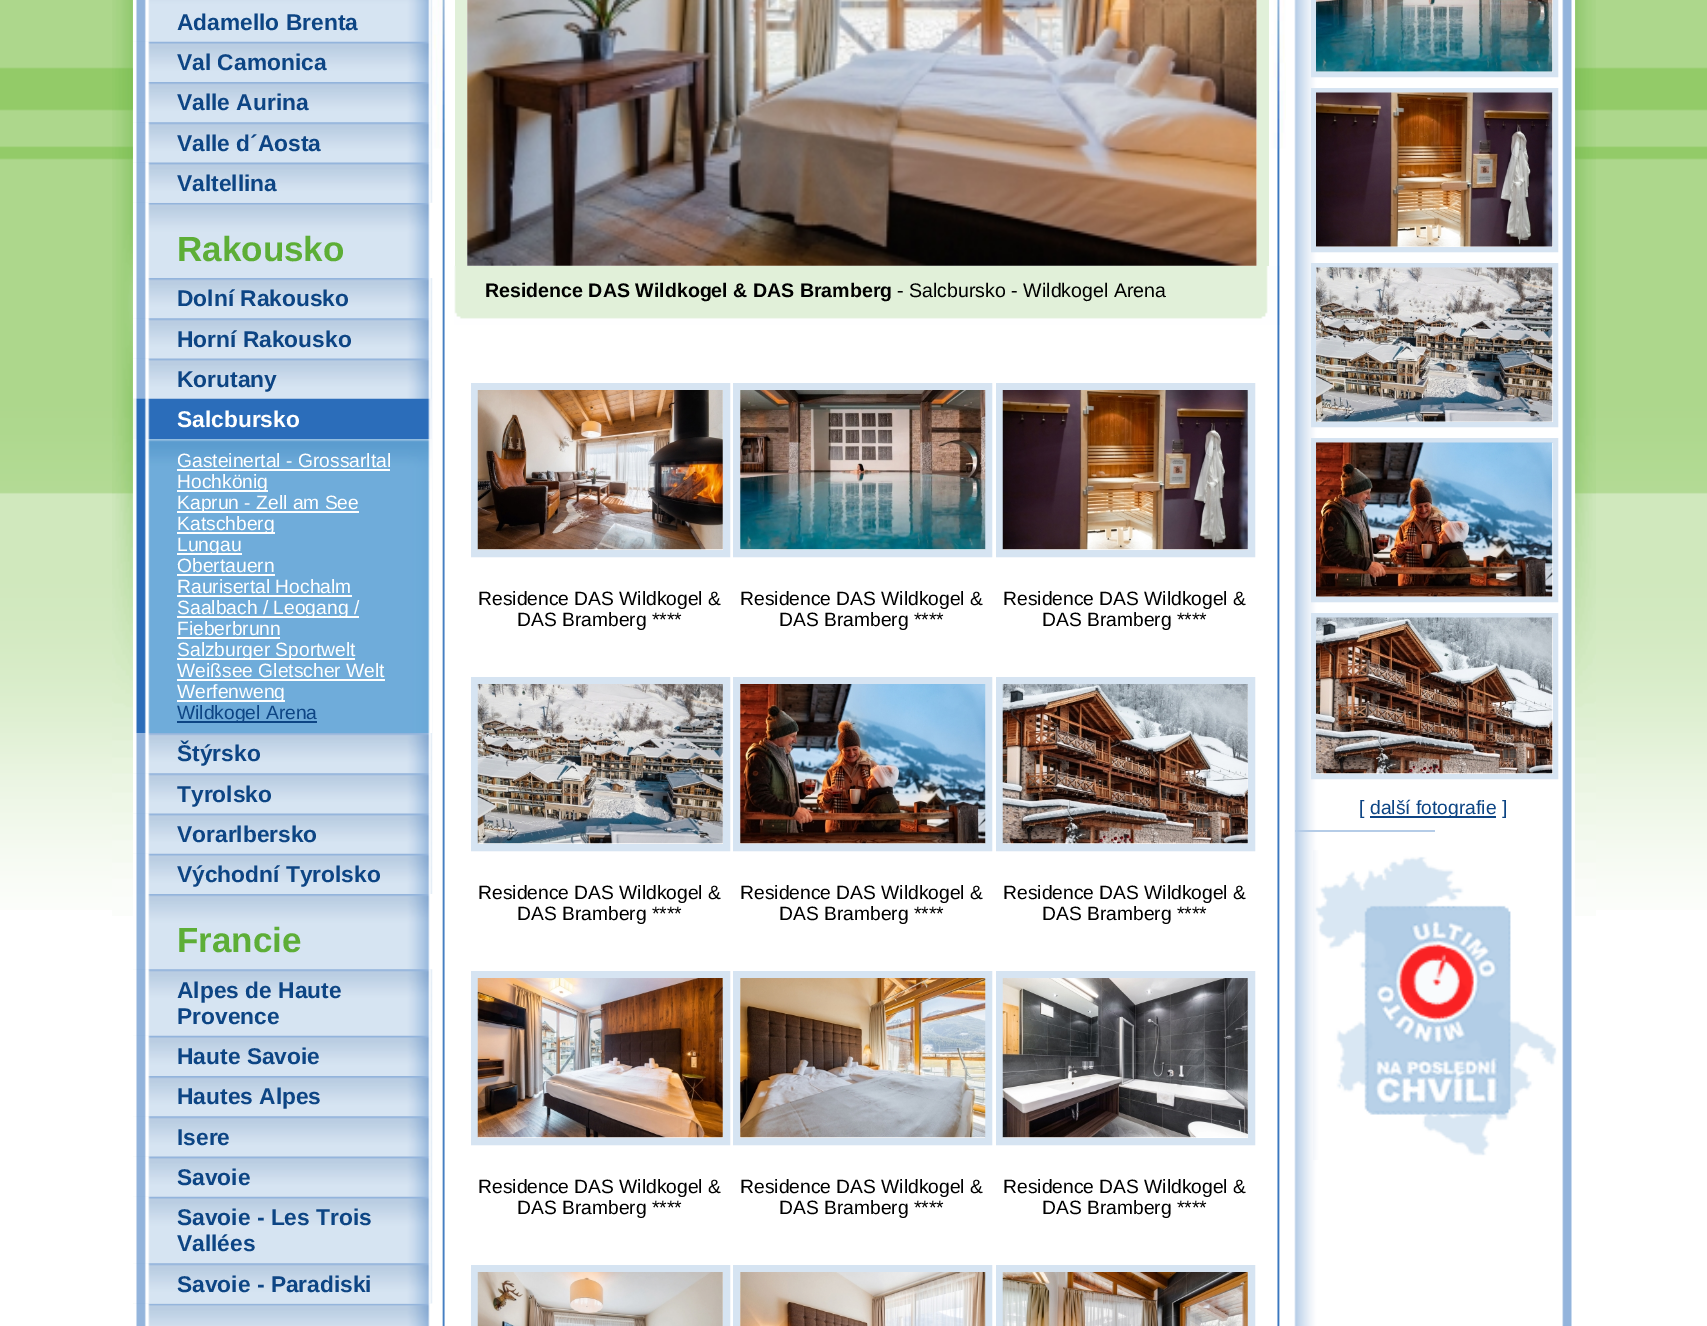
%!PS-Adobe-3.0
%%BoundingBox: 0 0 1707 1326
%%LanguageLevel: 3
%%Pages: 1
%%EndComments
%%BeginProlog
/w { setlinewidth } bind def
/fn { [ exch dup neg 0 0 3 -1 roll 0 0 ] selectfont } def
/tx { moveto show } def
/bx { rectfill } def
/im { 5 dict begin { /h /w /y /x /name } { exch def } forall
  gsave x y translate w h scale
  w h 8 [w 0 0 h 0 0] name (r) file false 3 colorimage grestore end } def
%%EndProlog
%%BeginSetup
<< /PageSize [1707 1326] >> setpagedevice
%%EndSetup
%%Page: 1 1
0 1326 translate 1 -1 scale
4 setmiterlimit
1 setgray
0 0 1707 1326 bx
(image0.raw) 0 0 1707 910 im
(image1.raw) 112 0 1484 916 im
(image2.raw) 133 0 1442 1326 im
(image9.raw) 133 202 297 76 im
(image3.raw) 133 0 300 203 im
(image4.raw) 133 0 298 42 im
/LiberationSans-Bold 22.75 fn
0.051 0.271 0.518 setrgbcolor
(Adamello Brenta) 177 30 tx
(image5.raw) 133 41 298 41 im
(Val Camonica) 177 70 tx
(image6.raw) 133 82 298 41 im
(Valle Aurina) 177 110 tx
(image7.raw) 133 122 298 41 im
(Valle d´Aosta) 177 151 tx
(image8.raw) 133 162 298 41 im
(Valtellina) 177 191 tx
/LiberationSans-Bold 35 fn
0.365 0.682 0.216 setrgbcolor
(Rakousko) 177 261 tx
(image10.raw) 133 278 300 616 im
(image11.raw) 133 278 298 41 im
/LiberationSans-Bold 22.75 fn
0.051 0.271 0.518 setrgbcolor
(Dolní Rakousko) 177 306 tx
(image12.raw) 133 318 298 41 im
(Horní Rakousko) 177 347 tx
(image13.raw) 133 358 298 41 im
(Korutany) 177 387 tx
(image14.raw) 133 398 299 41 im
1 setgray
(Salcbursko) 177 427 tx
(image15.raw) 133 439 299 294 im
/LiberationSans-Regular 19.25 fn
(Gasteinertal - Grossarltal) 177 467 tx
177 469 213 2 bx
177 490 91 2 bx
(Hochkönig) 177 488 tx
177 511 182 2 bx
(Kaprun - Zell am See) 177 509 tx
177 532 98 2 bx
(Katschberg) 177 530 tx
177 553 65 2 bx
(Lungau) 177 551 tx
(Obertauern) 177 572 tx
177 574 98 2 bx
(Raurisertal Hochalm) 177 593 tx
177 595 175 2 bx
177 616 182 2 bx
(Saalbach / Leogang /) 177 614 tx
(Fieberbrunn) 177 635 tx
177 637 103 2 bx
177 658 178 2 bx
(Salzburger Sportwelt) 177 656 tx
(Weißsee Gletscher Welt) 177 677 tx
177 679 208 2 bx
177 700 108 2 bx
(Werfenweng) 177 698 tx
0.051 0.271 0.518 setrgbcolor
177 721 140 2 bx
(Wildkogel Arena) 177 719 tx
(image6.raw) 133 733 298 41 im
/LiberationSans-Bold 22.75 fn
(Štýrsko) 177 761 tx
(image7.raw) 133 773 298 41 im
(Tyrolsko) 177 802 tx
(image16.raw) 133 813 298 41 im
(Vorarlbersko) 177 842 tx
(image17.raw) 133 853 298 41 im
(Východní Tyrolsko) 177 882 tx
(image18.raw) 133 894 297 75 im
/LiberationSans-Bold 35 fn
0.365 0.682 0.216 setrgbcolor
(Francie) 177 952 tx
(image27.raw) 133 1303 297 23 im
(image19.raw) 133 969 300 335 im
(image20.raw) 133 969 298 67 im
/LiberationSans-Bold 22.75 fn
0.051 0.271 0.518 setrgbcolor
(Alpes de Haute) 177 998 tx
(Provence) 177 1024 tx
(image21.raw) 133 1035 298 41 im
(Haute Savoie) 177 1064 tx
(image22.raw) 133 1076 298 41 im
(Hautes Alpes) 177 1104 tx
(image23.raw) 133 1116 298 41 im
(Isere) 177 1145 tx
(image24.raw) 133 1156 298 41 im
(Savoie) 177 1185 tx
(image25.raw) 133 1196 298 68 im
(Savoie - Les Trois) 177 1225 tx
(Vallées) 177 1251 tx
(image26.raw) 133 1263 298 41 im
(Savoie - Paradiski) 177 1292 tx
(image28.raw) 442 148 2 1178 im
(image29.raw) 433 0 853 149 im
(image31.raw) 454 265 826 60 im
0.882 0.941 0.851 setrgbcolor
455 0 12 266 bx
(image30.raw) 467 0 790 266 im
1257 0 12 266 bx
/LiberationSans-Bold 19.6 fn
0 setgray
(Residence DAS Wildkogel & DAS Bramberg) 485 297 tx
/LiberationSans-Regular 19.6 fn
(- Salcbursko - Wildkogel Arena) 897 297 tx
0.839 0.894 0.949 setrgbcolor
7 w
474.5 386.5 252 167 rectstroke
(image32.raw) 477 390 246 160 im
/LiberationSans-Regular 19.25 fn
0 setgray
(Residence DAS Wildkogel &) 478 605 tx
(DAS Bramberg ****) 517 626 tx
0.839 0.894 0.949 setrgbcolor
736.5 386.5 252 167 rectstroke
(image33.raw) 740 390 246 160 im
0 setgray
(Residence DAS Wildkogel &) 740 605 tx
(DAS Bramberg ****) 779 626 tx
0.839 0.894 0.949 setrgbcolor
999.5 386.5 252 167 rectstroke
(image34.raw) 1002 390 246 160 im
0 setgray
(Residence DAS Wildkogel &) 1003 605 tx
(DAS Bramberg ****) 1042 626 tx
0.839 0.894 0.949 setrgbcolor
474.5 680.5 252 167 rectstroke
(image35.raw) 477 684 246 160 im
0 setgray
(Residence DAS Wildkogel &) 478 899 tx
(DAS Bramberg ****) 517 920 tx
0.839 0.894 0.949 setrgbcolor
736.5 680.5 252 167 rectstroke
(image36.raw) 740 684 246 160 im
0 setgray
(Residence DAS Wildkogel &) 740 899 tx
(DAS Bramberg ****) 779 920 tx
0.839 0.894 0.949 setrgbcolor
999.5 680.5 252 167 rectstroke
(image37.raw) 1002 684 246 160 im
0 setgray
(Residence DAS Wildkogel &) 1003 899 tx
(DAS Bramberg ****) 1042 920 tx
0.839 0.894 0.949 setrgbcolor
474.5 974.5 252 167 rectstroke
(image38.raw) 477 978 246 160 im
0 setgray
(Residence DAS Wildkogel &) 478 1193 tx
(DAS Bramberg ****) 517 1214 tx
0.839 0.894 0.949 setrgbcolor
736.5 974.5 252 167 rectstroke
(image39.raw) 740 978 246 160 im
0 setgray
(Residence DAS Wildkogel &) 740 1193 tx
(DAS Bramberg ****) 779 1214 tx
0.839 0.894 0.949 setrgbcolor
999.5 974.5 252 167 rectstroke
(image40.raw) 1002 978 246 160 im
0 setgray
(Residence DAS Wildkogel &) 1003 1193 tx
(DAS Bramberg ****) 1042 1214 tx
0.839 0.894 0.949 setrgbcolor
474.5 1268.5 252 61 rectstroke
(image41.raw) 477 1272 246 54 im
736.5 1268.5 252 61 rectstroke
(image42.raw) 740 1272 246 54 im
999.5 1268.5 252 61 rectstroke
(image43.raw) 1002 1272 246 54 im
5 w
1313.5 -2.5 242 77 rectstroke
(image44.raw) 1316 0 237 72 im
1313.5 90.5 242 159 rectstroke
(image45.raw) 1316 92 237 155 im
1313.5 265.5 242 159 rectstroke
(image46.raw) 1316 267 237 155 im
1313.5 440.5 242 159 rectstroke
(image47.raw) 1316 442 237 155 im
1313.5 615.5 242 161 rectstroke
(image48.raw) 1316 617 237 157 im
0.051 0.271 0.518 setrgbcolor
([) 1359 814 tx
0.051 0.267 0.518 setrgbcolor
1370 816 126 2 bx
0.051 0.271 0.518 setrgbcolor
(další fotografie ]) 1370 814 tx
0.71 0.8 0.906 setrgbcolor
1295 830 140 2 bx
(image49.raw) 1313 850 244 310 im
showpage
%%EOF
